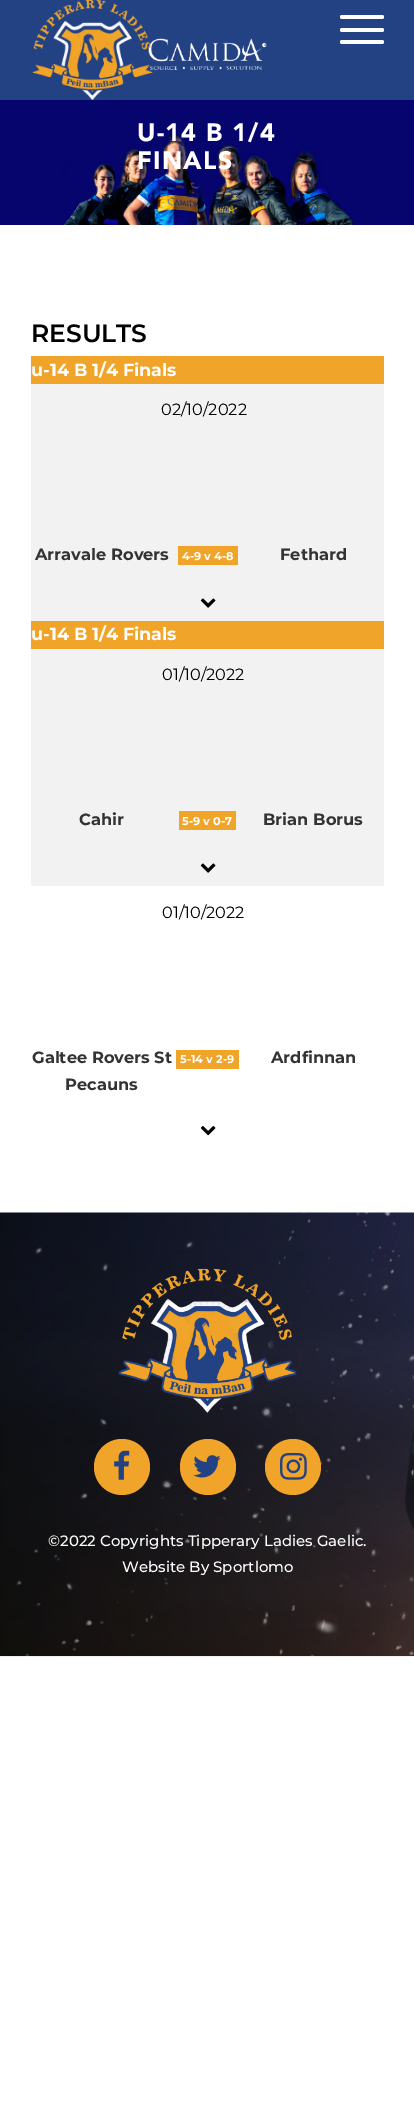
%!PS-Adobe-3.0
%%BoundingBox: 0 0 414 2127
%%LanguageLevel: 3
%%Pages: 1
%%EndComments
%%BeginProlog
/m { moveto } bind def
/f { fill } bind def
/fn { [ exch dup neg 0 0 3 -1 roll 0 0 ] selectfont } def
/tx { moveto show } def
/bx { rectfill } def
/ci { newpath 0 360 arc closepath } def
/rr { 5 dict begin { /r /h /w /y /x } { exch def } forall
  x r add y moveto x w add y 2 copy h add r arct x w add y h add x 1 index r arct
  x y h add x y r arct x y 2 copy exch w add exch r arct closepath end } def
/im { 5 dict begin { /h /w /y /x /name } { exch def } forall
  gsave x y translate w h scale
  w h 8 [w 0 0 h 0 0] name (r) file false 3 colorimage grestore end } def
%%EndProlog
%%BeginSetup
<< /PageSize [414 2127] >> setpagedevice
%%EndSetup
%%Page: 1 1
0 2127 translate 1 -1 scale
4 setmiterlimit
1 setgray
0 0 414 2127 bx
0.137 0.259 0.518 setrgbcolor
0 0 414 100 bx
(image1.raw) 148 38 119 32 im
(image0.raw) 32 0 121 100 im
1 setgray
340 28 44 4 2 rr f
340 15 44 4 2 rr f
340 40 44 4 2 rr f
(image2.raw) 0 100 414 125 im
/Avenir-Black 25 fn
137 141 m 1.25 0 (U-14 B 1/4) ashow
137 169 m 1.25 0 (FINALS) ashow
/Montserrat-SemiBold 25 fn
0 setgray
(RESULTS) 31 342 tx
0.941 0.643 0.161 setrgbcolor
31 356 353 28 bx
/Montserrat-Bold 17.5 fn
1 setgray
(u-14 B 1/4 Finals) 31 376 tx
0.949 setgray
31 384 353 237 bx
/Montserrat-Regular 16.25 fn
0 setgray
(02/10/2022) 161 415 tx
/Montserrat-Bold 16.25 fn
0.2 setgray
(Arravale Rovers) 35 560 tx
0.941 0.643 0.161 setrgbcolor
178 546 60 19 bx
/Montserrat-Bold 11.25 fn
1 setgray
(4-9 v 4-8) 182 560 tx
/Montserrat-Bold 16.25 fn
0.2 setgray
(Fethard) 280 560 tx
(image3.raw) 200 598 16 10 im
0.941 0.643 0.161 setrgbcolor
31 621 353 28 bx
/Montserrat-Bold 17.5 fn
1 setgray
(u-14 B 1/4 Finals) 31 640 tx
0.949 setgray
31 649 353 237 bx
/Montserrat-Regular 16.25 fn
0 setgray
(01/10/2022) 162 680 tx
/Montserrat-Bold 16.25 fn
0.2 setgray
(Cahir) 79 825 tx
0.941 0.643 0.161 setrgbcolor
179 811 57 19 bx
/Montserrat-Bold 11.25 fn
1 setgray
(5-9 v 0-7) 182 825 tx
/Montserrat-Bold 16.25 fn
0.2 setgray
(Brian Borus) 263 825 tx
(image3.raw) 200 863 16 10 im
/Montserrat-Regular 16.25 fn
0 setgray
(01/10/2022) 162 918 tx
/Montserrat-Bold 16.25 fn
0.2 setgray
(Galtee Rovers St) 32 1063 tx
(Pecauns) 65 1090 tx
0.941 0.643 0.161 setrgbcolor
176 1050 63 19 bx
/Montserrat-Bold 11.25 fn
1 setgray
(5-14 v 2-9) 180 1063 tx
/Montserrat-Bold 16.25 fn
0.2 setgray
(Ardfinnan) 271 1063 tx
(image4.raw) 200 1126 16 10 im
(image5.raw) 0 1212 414 445 im
(image6.raw) 118 1268 179 145 im
0.941 0.643 0.161 setrgbcolor
122 1467 28 ci f
(image7.raw) 114 1450 16 30 im
208 1467 28 ci f
(image8.raw) 193 1455 28 23 im
293 1467 28 ci f
(image9.raw) 280 1452 27 28 im
/Montserrat-Medium 15 fn
1 setgray
(©2022 Copyrights Tipperary Ladies Gaelic.) 48 1546 tx
(Website By Sportlomo) 122 1572 tx
showpage
%%EOF
